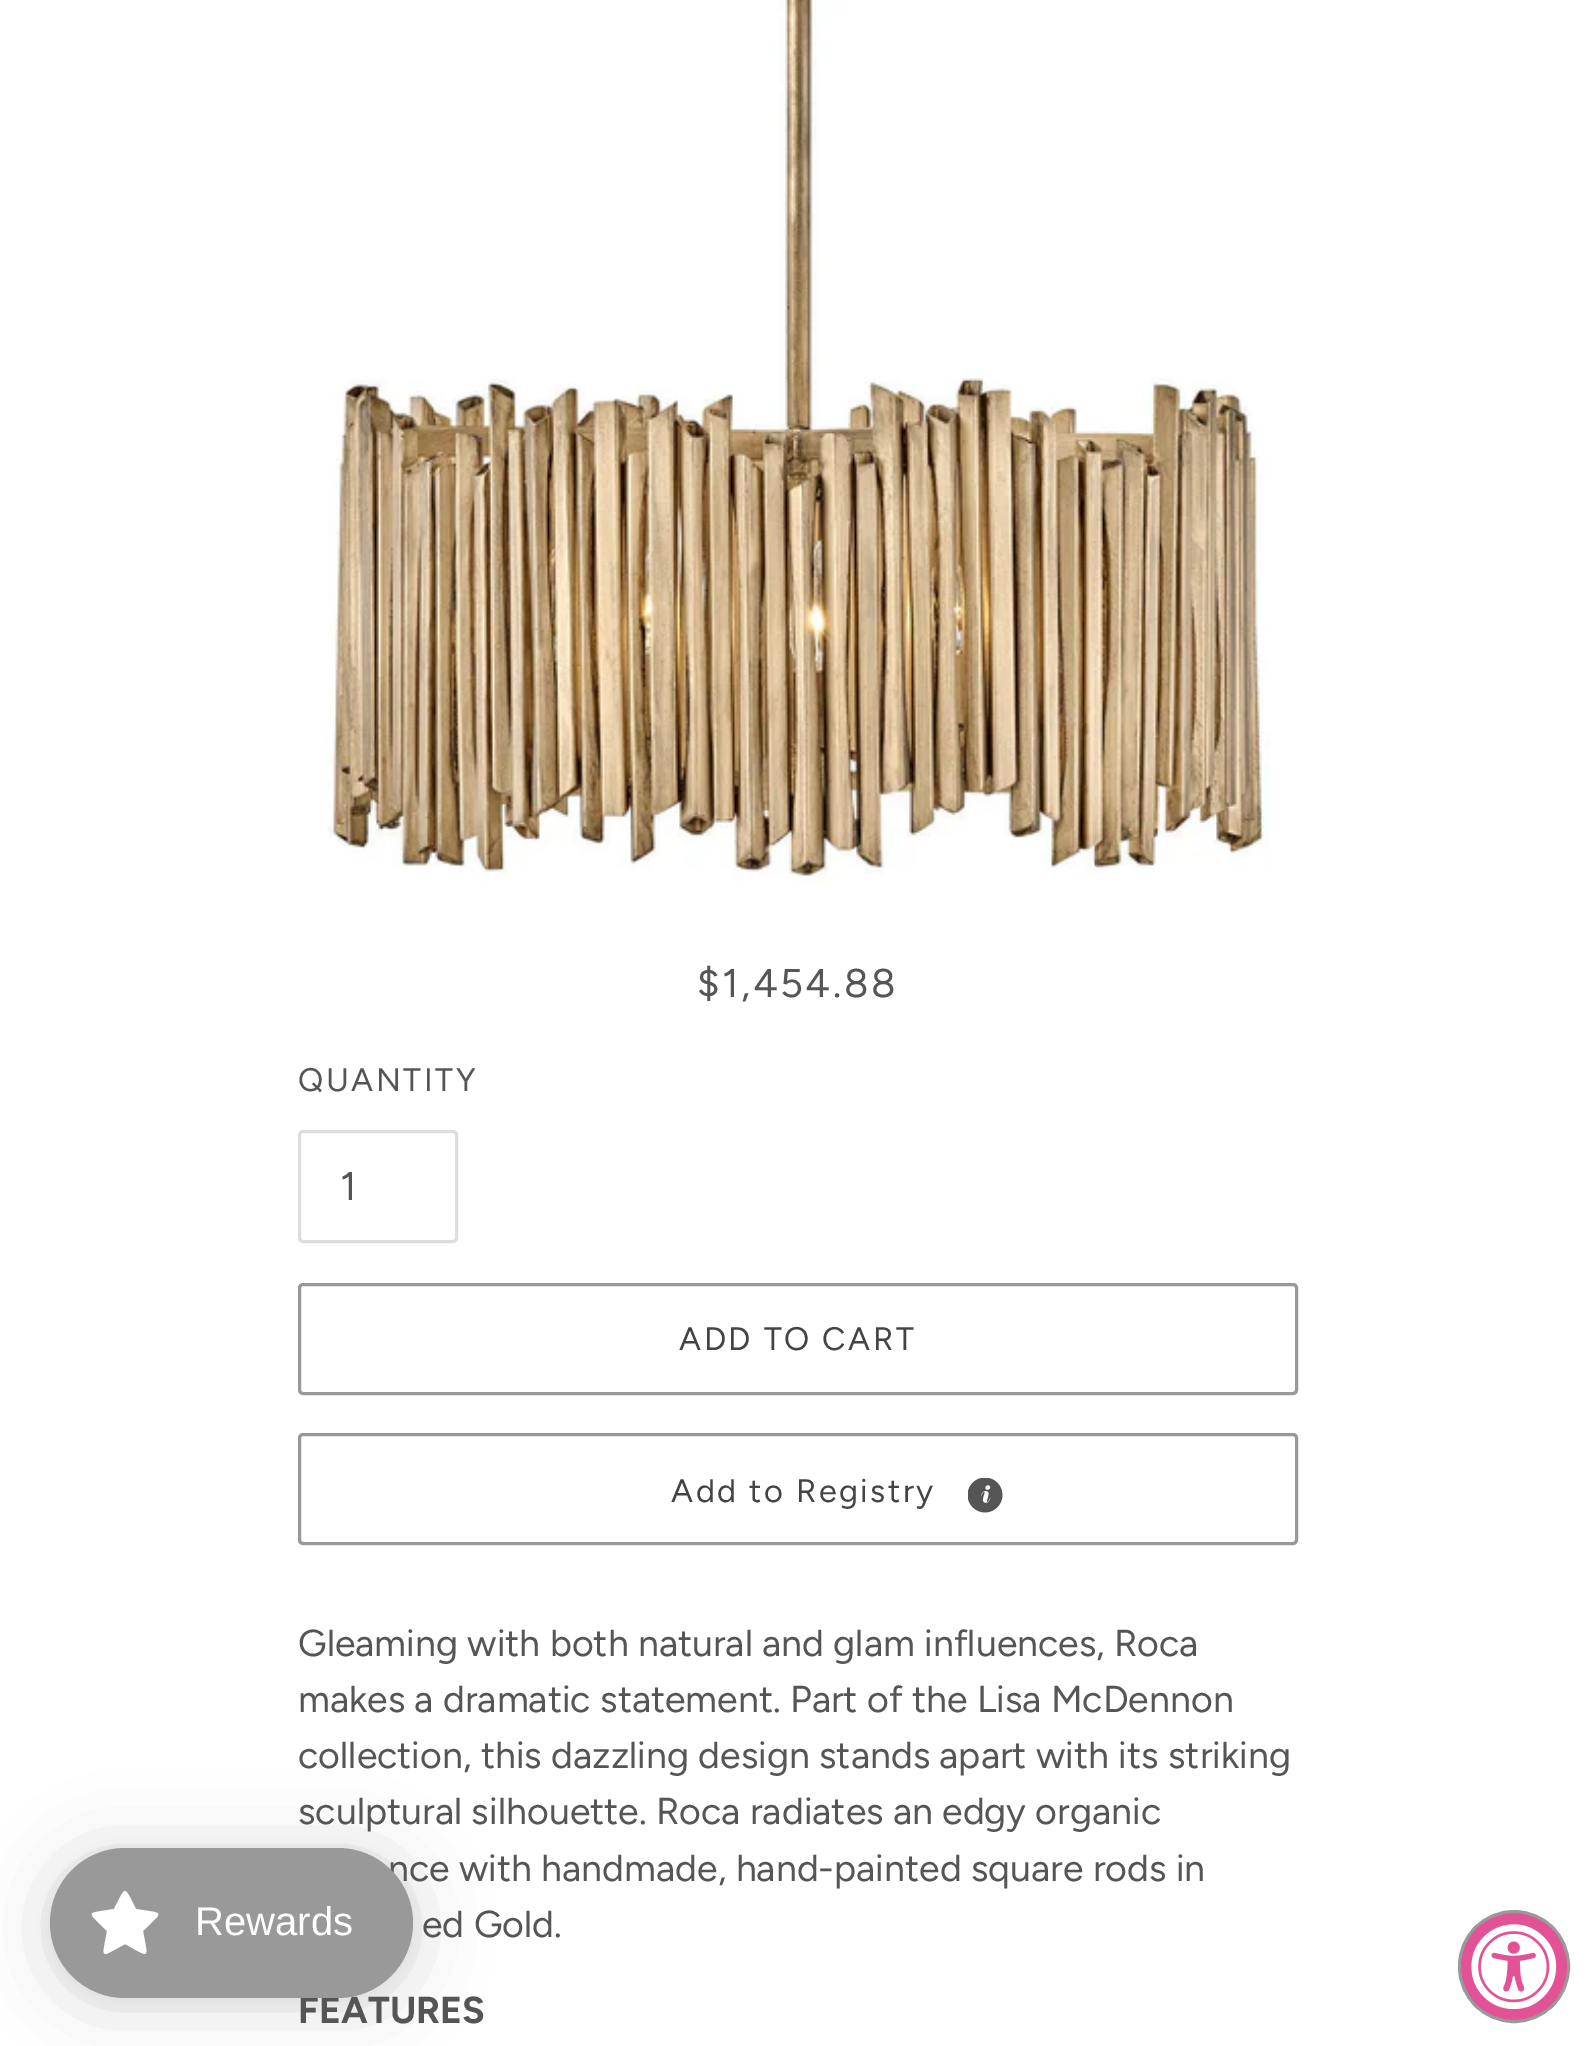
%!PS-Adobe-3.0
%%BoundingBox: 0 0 1595 2046
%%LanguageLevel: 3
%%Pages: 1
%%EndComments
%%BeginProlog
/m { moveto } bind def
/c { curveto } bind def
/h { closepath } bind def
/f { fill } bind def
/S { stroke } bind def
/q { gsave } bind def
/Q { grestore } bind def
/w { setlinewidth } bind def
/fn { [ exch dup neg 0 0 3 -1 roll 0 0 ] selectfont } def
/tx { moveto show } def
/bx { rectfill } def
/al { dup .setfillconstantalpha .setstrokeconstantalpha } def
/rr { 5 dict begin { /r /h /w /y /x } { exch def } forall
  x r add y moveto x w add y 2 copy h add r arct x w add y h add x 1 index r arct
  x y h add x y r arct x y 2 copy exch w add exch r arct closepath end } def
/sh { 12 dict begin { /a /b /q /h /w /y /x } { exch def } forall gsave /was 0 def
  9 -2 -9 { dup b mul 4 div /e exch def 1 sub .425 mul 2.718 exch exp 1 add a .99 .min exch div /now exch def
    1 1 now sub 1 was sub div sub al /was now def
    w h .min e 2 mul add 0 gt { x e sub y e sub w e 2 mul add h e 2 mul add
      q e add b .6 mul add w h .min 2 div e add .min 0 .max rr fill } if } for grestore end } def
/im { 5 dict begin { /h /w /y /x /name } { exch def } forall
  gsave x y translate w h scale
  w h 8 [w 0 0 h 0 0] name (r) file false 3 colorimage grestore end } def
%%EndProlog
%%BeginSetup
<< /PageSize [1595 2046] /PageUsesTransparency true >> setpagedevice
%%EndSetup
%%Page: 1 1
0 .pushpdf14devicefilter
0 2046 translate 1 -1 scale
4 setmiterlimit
1 setgray
0 0 1595 2046 bx
0 setgray
50 1853 363 150 75 37.5 0.15 sh
50 1850 363 150 75 7.5 0.05 sh
/Figtree-Regular 37.5 fn
0.333 setgray
(nce with handmade, hand-painted square rods in) 388 1881 tx
/Figtree-Bold 37.5 fn
(FEATURES) 298 2023 tx
0.6 setgray
50 1848 363 150 75 rr f
1 setgray
125 1891 m 122 1891 116 1906 114 1909 c 85 1914 86 1910 107 1931 c 102 1960 99 1958 125 1944 c 151 1958 148 1960 143 1931 c 164 1910 165 1914 136 1909 c 134 1906 128 1891 125 1891 c h f
/LiberationSans-Regular 40 fn
(Rewards) 195 1935 tx
(image0.raw) 327 0 944 886 im
/Figtree-Regular 40 fn
0.333 setgray
697 997 m 2.5 0 ($1,454.88) ashow
/Figtree-Regular 32.5 fn
298 1091 m 2.5 0 (QUANTITY) ashow
0.867 setgray
3 w
299.5 1131.5 157 110 3.5 rr S
/Figtree-Regular 40 fn
0.333 setgray
340 1200 m 2.5 0 (1) ashow
0.6 setgray
299.5 1284.5 997 109 3.5 rr S
/Figtree-Regular 32.5 fn
0.267 setgray
679 1350 m 2.5 0 (ADD TO CART) ashow
0.6 setgray
299.5 1434.5 997 109 3.5 rr S
0.267 setgray
671 1502 m 2.5 0 (Add to Registry) ashow
(image1.raw) 968 1478 35 35 im
/Figtree-Regular 37.5 fn
0.333 setgray
(Gleaming with both natural and glam influences, Roca) 298 1656 tx
(makes a dramatic statement. Part of the Lisa McDennon) 298 1712 tx
(collection, this dazzling design stands apart with its striking) 298 1768 tx
(sculptural silhouette. Roca radiates an edgy organic) 298 1824 tx
(ed Gold.) 422 1937 tx
0.89 0.322 0.584 setrgbcolor
1459.5 1911.5 109 110 54.5 rr q f Q
0.6 setgray
S
(image2.raw) 1471 1924 86 86 im
.poppdf14devicefilter showpage
%%EOF
